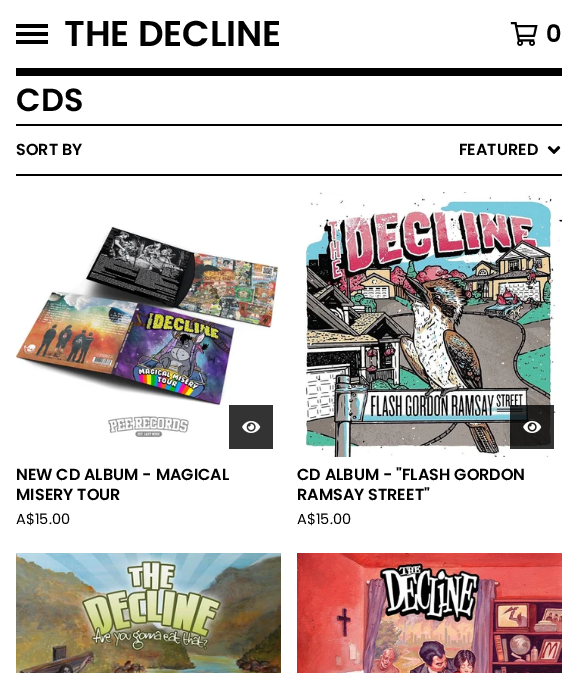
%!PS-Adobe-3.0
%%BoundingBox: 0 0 578 673
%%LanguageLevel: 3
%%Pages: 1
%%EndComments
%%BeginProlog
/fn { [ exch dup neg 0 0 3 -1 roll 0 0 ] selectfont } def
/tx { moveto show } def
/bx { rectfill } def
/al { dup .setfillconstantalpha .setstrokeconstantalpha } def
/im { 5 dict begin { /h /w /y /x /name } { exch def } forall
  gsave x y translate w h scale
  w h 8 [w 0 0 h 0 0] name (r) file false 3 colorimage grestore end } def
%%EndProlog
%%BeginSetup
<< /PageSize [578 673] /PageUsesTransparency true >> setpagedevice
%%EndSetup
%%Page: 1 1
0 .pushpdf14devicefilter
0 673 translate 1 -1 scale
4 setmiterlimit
1 setgray
0 0 578 673 bx
0 setgray
16 68 546 8 bx
16 32 32 4 bx
16 24 32 4 bx
16 40 32 4 bx
/Poppins-SemiBold 35.75 fn
(THE DECLINE) 64 46 tx
(image0.raw) 510 22 28 24 im
/Poppins-SemiBold 24 fn
(0) 546 42 tx
16 174 546 2 bx
16 124 546 2 bx
/Poppins-SemiBold 32 fn
(CDS) 16 111 tx
/Poppins-SemiBold 16 fn
(SORT BY) 16 155 tx
(FEATURED) 459 155 tx
(image1.raw) 547 146 14 8 im
(image2.raw) 16 226 263 212 im
0.2 setgray
229 405 44 44 bx
(image3.raw) 242 421 19 12 im
0 setgray
(NEW CD ALBUM - MAGICAL) 16 480 tx
(MISERY TOUR) 16 500 tx
/Poppins-Regular 14.5 fn
(A$15.00) 16 524 tx
(image4.raw) 304 192 258 265 im
0.8 al
510 405 44 44 bx
1 al
(image5.raw) 523 421 19 12 im
/Poppins-SemiBold 16 fn
(CD ALBUM - "FLASH GORDON) 297 480 tx
(RAMSAY STREET") 297 500 tx
/Poppins-Regular 14.5 fn
(A$15.00) 297 524 tx
(image6.raw) 16 553 265 120 im
(image7.raw) 297 553 265 120 im
.poppdf14devicefilter showpage
%%EOF
